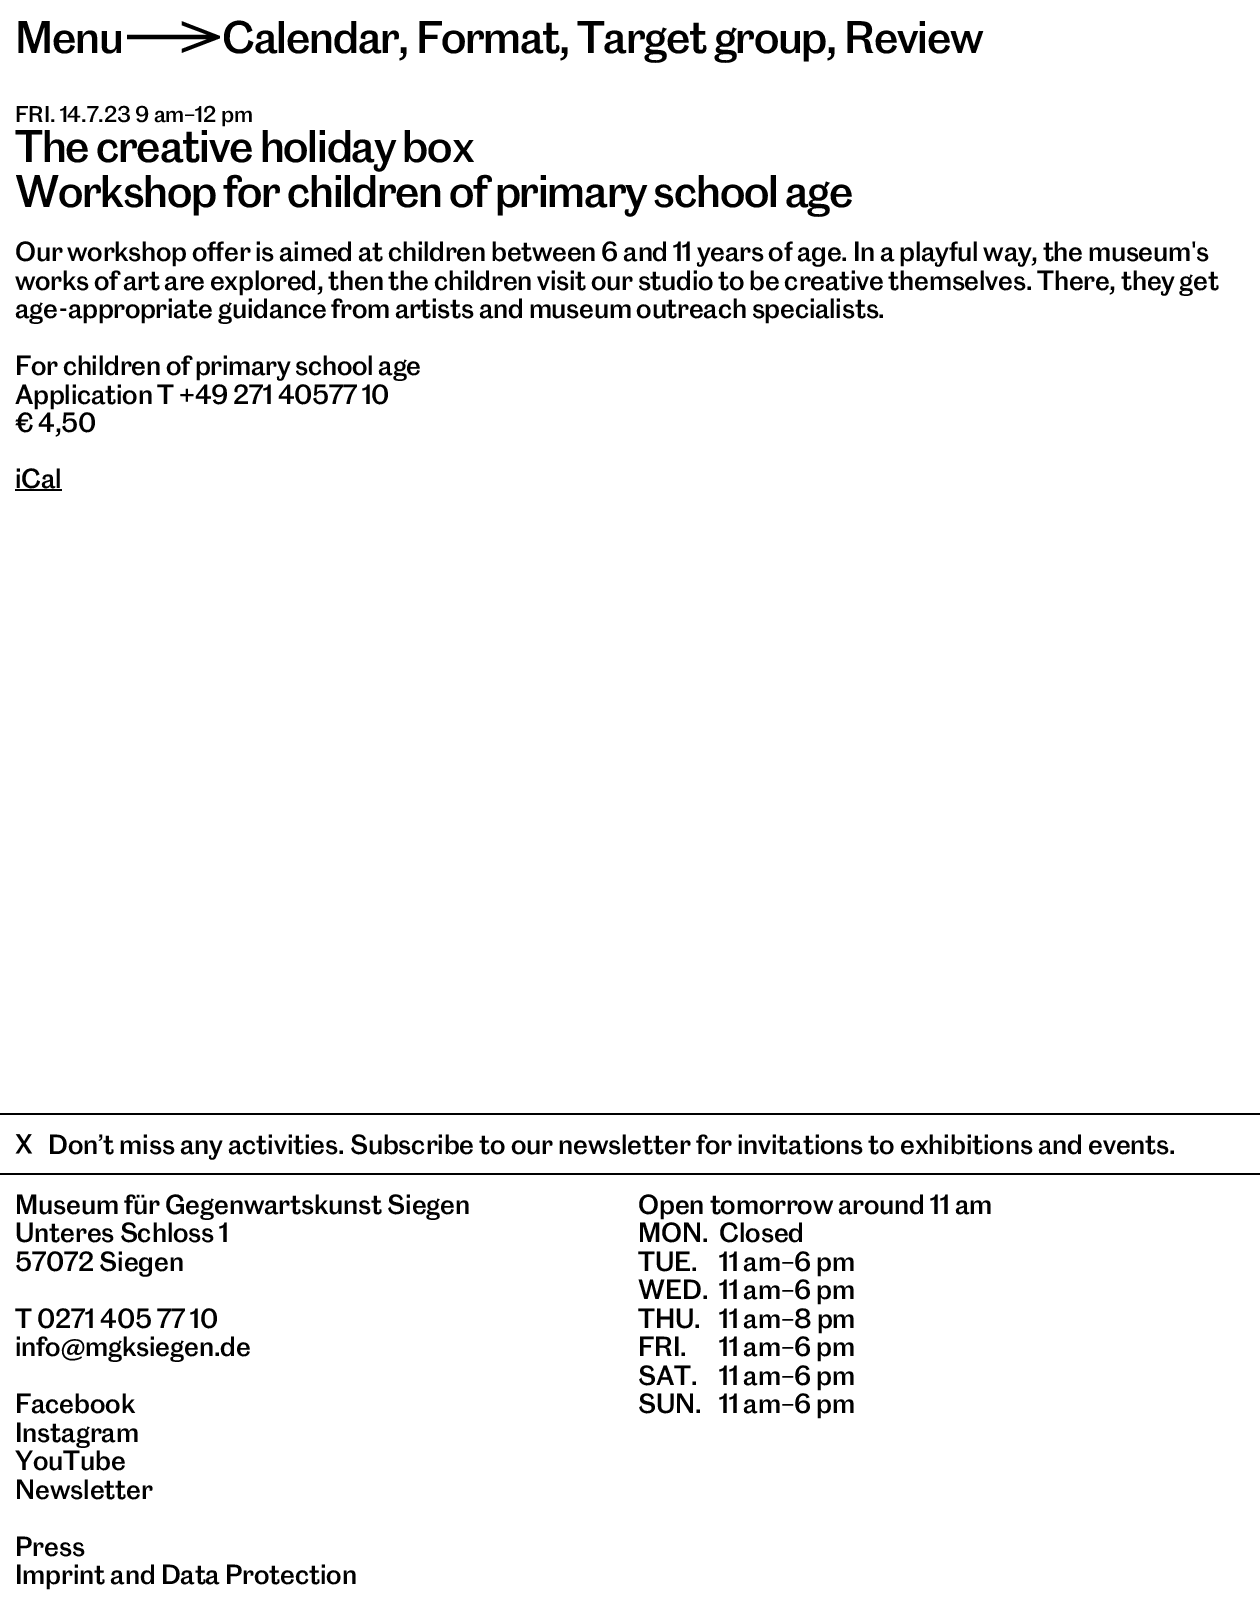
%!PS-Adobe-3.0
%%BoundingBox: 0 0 1260 1620
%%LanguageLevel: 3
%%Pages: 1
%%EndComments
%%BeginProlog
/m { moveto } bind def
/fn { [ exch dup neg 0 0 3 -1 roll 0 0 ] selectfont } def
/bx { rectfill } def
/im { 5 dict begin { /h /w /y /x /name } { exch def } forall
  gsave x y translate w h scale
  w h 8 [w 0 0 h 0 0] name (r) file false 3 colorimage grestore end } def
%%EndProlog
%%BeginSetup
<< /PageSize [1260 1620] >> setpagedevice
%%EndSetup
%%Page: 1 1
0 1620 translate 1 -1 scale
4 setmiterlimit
1 setgray
0 0 1260 1620 bx
/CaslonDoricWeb-Medium 42 fn
0 setgray
15 53 m -1.25 0 (Menu) ashow
/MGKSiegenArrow-Medium 42 fn
123 53 m -1.25 0 (>) ashow
/CaslonDoricWeb-Medium 42 fn
222 53 m -1.25 0 (Calendar, Format, Target group, Review) ashow
/CaslonDoricWeb-Medium 21 fn
15 122 m -0.1 0 (FRI. 14.7.23 9 am–12 pm) ashow
/CaslonDoricWeb-Medium 42 fn
15 162 m -1.25 0 (The creative holiday box) ashow
15 207 m -1.25 0 (Workshop for children of primary school age) ashow
/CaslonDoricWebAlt-Medium 25.5 fn
15 261 m -0.26 0 (Our workshop offer is aimed at children between 6 and 11 years of age. In a playful way, the museum's) ashow
/CaslonDoricWeb-Medium 25.5 fn
15 290 m -0.26 0 (works of art are explored, then the children visit our studio to be creative themselves. There, they get) ashow
15 318 m -0.26 0 (age-appropriate guidance from artists and museum outreach specialists.) ashow
15 375 m -0.26 0 (For children of primary school age) ashow
15 404 m -0.26 0 (Application T +49 271 40577 10) ashow
15 432 m -0.26 0 (€ 4,50) ashow
15 488 m -0.26 0 (iCal) ashow
15 489 47 2 bx
0 1113 1260 2 bx
(image0.raw) 15 1134 18 20 im
48 1154 m -0.13 0 (Don’t miss any activities. Subscribe to our newsletter for invitations to exhibitions and events.) ashow
0 1173 1260 2 bx
15 1214 m -0.13 0 (Museum für Gegenwartskunst Siegen) ashow
15 1242 m -0.13 0 (Unteres Schloss 1) ashow
/CaslonDoricWebAlt-Medium 25.5 fn
15 1271 m -0.13 0 (57072 Siegen) ashow
/CaslonDoricWeb-Medium 25.5 fn
15 1328 m -0.13 0 (T 0271 405 77 10) ashow
15 1356 m -0.13 0 (info@mgksiegen.de) ashow
15 1413 m -0.13 0 (Facebook) ashow
15 1442 m -0.13 0 (Instagram) ashow
15 1470 m -0.13 0 (YouTube) ashow
15 1499 m -0.13 0 (Newsletter) ashow
15 1556 m -0.13 0 (Press) ashow
15 1584 m -0.13 0 (Imprint and Data Protection) ashow
638 1214 m -0.13 0 (Open tomorrow around 11 am) ashow
638 1242 m -0.13 0 (MON.) ashow
719 1242 m -0.13 0 (Closed) ashow
638 1271 m -0.13 0 (TUE.) ashow
719 1271 m -0.13 0 (11 am–6 pm) ashow
638 1299 m -0.13 0 (WED.) ashow
719 1299 m -0.13 0 (11 am–6 pm) ashow
638 1328 m -0.13 0 (THU.) ashow
719 1328 m -0.13 0 (11 am–8 pm) ashow
638 1356 m -0.13 0 (FRI.) ashow
719 1356 m -0.13 0 (11 am–6 pm) ashow
638 1385 m -0.13 0 (SAT.) ashow
719 1385 m -0.13 0 (11 am–6 pm) ashow
638 1413 m -0.13 0 (SUN.) ashow
719 1413 m -0.13 0 (11 am–6 pm) ashow
showpage
%%EOF
